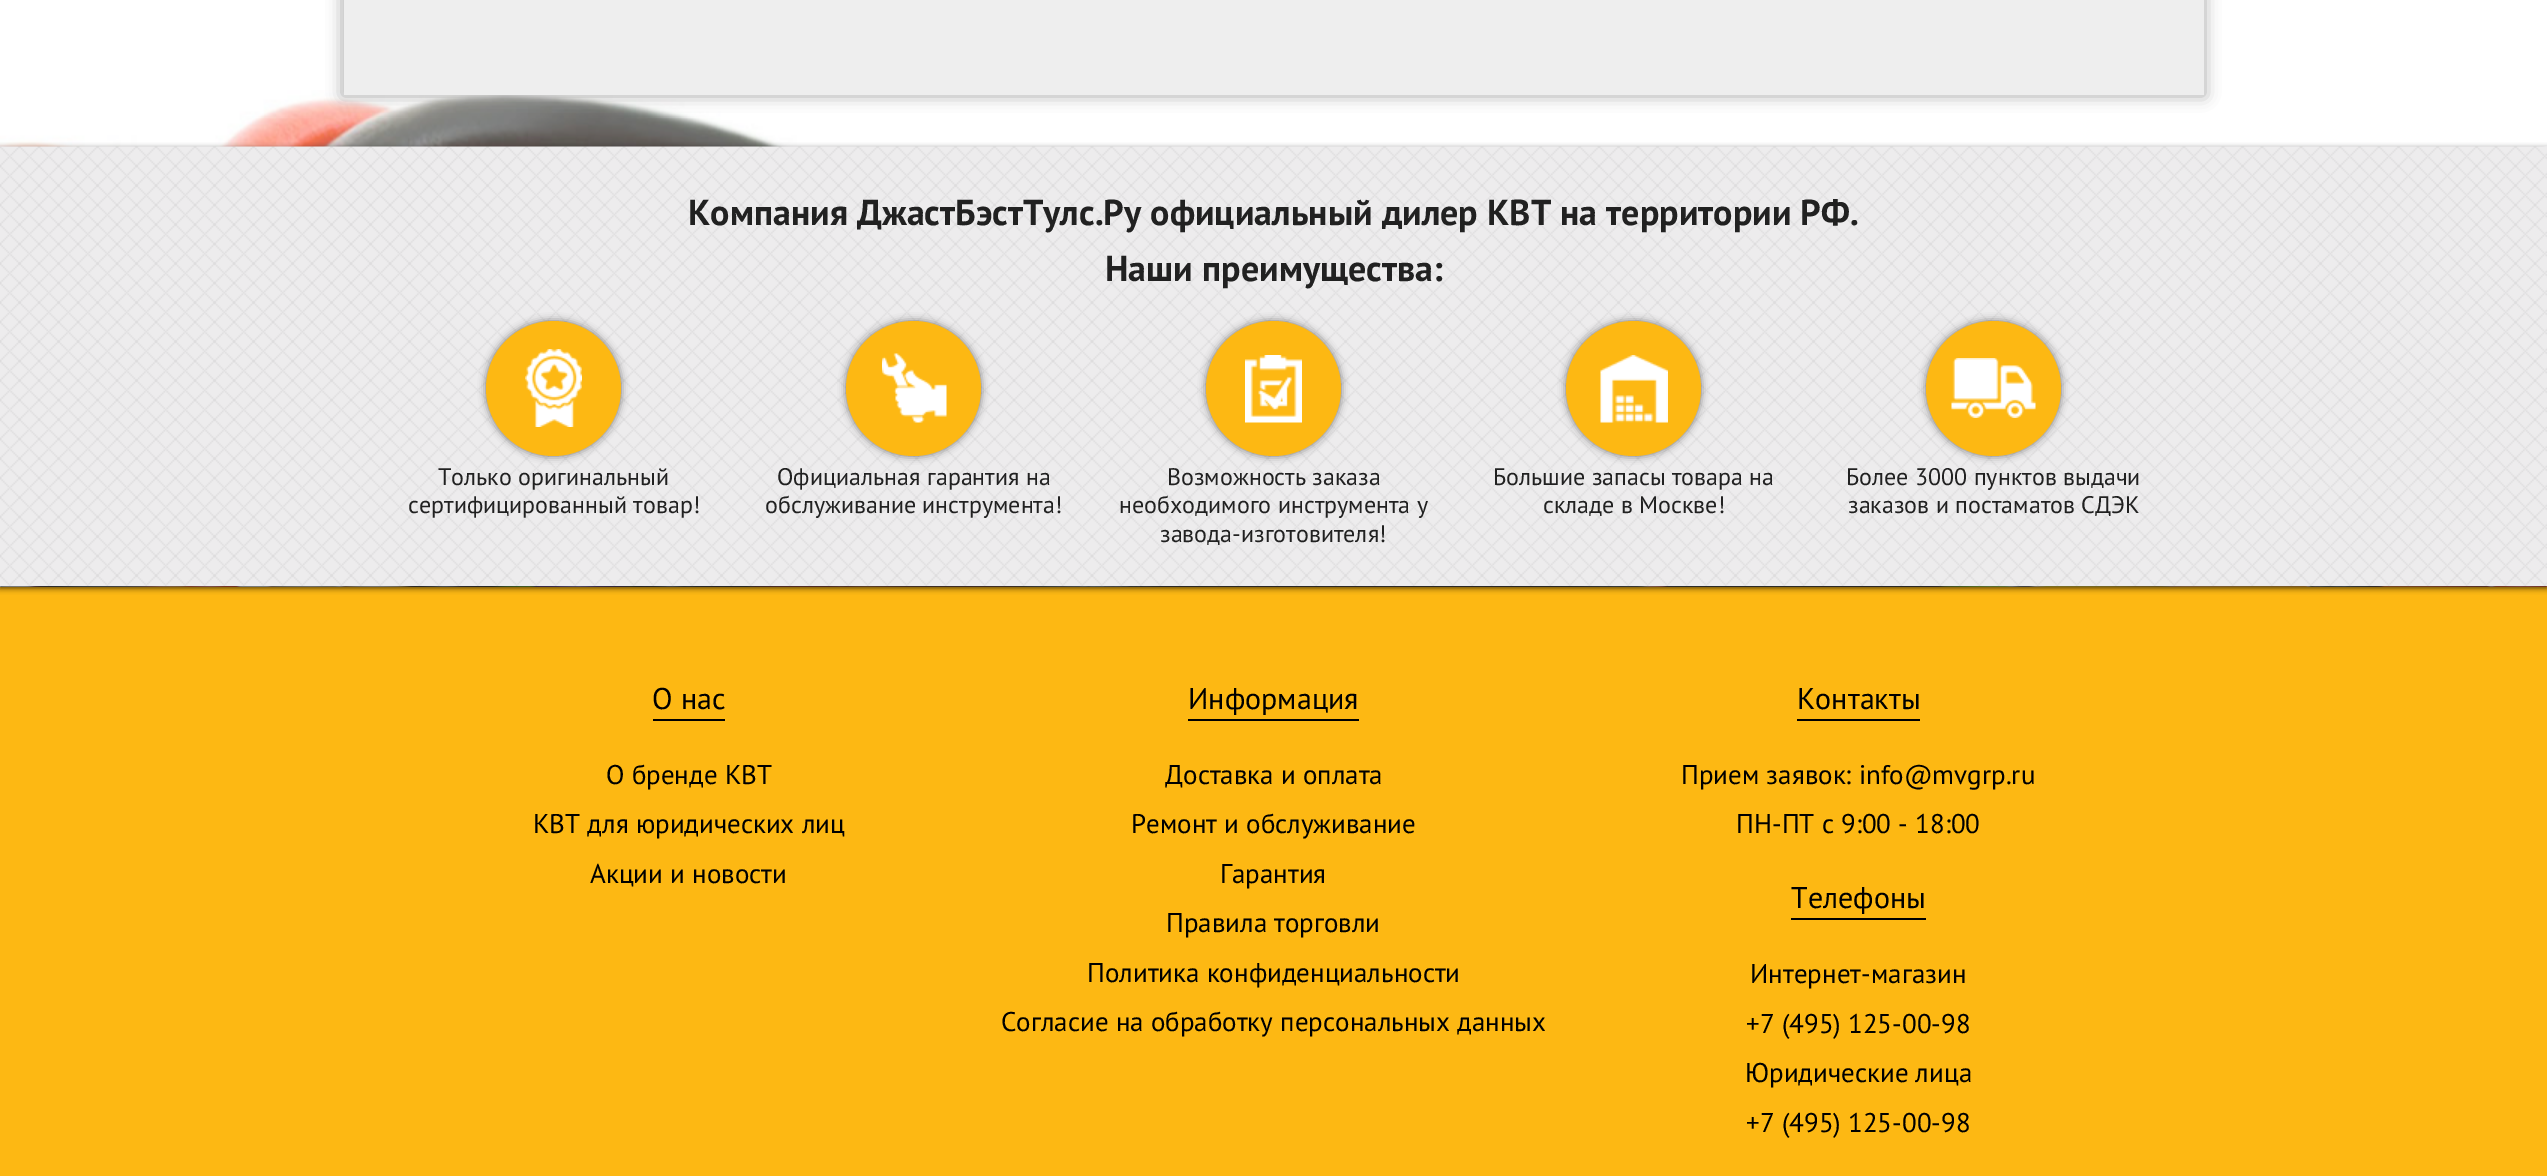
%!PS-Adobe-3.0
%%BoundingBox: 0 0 2547 1176
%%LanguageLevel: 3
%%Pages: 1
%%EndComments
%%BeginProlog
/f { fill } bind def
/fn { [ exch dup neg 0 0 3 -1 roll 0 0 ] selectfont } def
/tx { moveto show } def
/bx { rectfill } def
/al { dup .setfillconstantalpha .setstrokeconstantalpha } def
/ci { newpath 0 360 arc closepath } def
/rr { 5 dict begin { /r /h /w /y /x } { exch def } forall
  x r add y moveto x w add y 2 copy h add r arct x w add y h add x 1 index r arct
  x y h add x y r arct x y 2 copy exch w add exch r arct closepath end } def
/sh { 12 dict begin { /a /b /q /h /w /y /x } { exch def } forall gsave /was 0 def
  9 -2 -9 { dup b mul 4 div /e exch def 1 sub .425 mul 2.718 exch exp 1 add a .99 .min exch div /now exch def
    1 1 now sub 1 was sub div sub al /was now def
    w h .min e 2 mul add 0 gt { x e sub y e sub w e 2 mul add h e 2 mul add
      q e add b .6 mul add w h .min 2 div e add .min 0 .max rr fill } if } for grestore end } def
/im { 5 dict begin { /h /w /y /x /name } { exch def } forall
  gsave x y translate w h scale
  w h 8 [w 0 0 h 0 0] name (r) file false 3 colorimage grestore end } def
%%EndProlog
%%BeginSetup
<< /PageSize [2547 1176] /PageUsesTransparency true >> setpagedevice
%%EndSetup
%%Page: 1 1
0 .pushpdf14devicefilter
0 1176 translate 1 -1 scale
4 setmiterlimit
1 setgray
0 0 2547 1176 bx
(image0.raw) 0 90 2547 497 im
0.667 setgray
342 -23 1863 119 0 7.5 1 sh
0.933 setgray
344 0 1860 95 bx
0.992 0.722 0.075 setrgbcolor
0 587 2547 589 bx
0 setgray
0 149 2547 439 0 3 0.75 sh
(image1.raw) 0 146 2547 440 im
/PTSans-Bold 36 fn
0.129 setgray
(Компания ДжастБэстТулс.Ру официальный дилер КВТ на территории РФ.) 688 225 tx
(Наши преимущества:) 1105 281 tx
0 setgray
486 321 135 135 67.5 4 0.5 sh
0.992 0.722 0.075 setrgbcolor
553.5 388.5 67.5 ci f
(image2.raw) 525 349 57 78 im
/PTSans-Regular 24 fn
0.129 setgray
(Только оригинальный) 438 485 tx
(сертифицированный товар!) 408 513 tx
0 setgray
846 321 135 135 67.5 4 0.5 sh
0.992 0.722 0.075 setrgbcolor
913.5 388.5 67.5 ci f
(image3.raw) 882 353 65 70 im
0.129 setgray
(Официальная гарантия на) 777 485 tx
(обслуживание инструмента!) 765 513 tx
0 setgray
1206 321 135 135 67.5 4 0.5 sh
0.992 0.722 0.075 setrgbcolor
1273.5 388.5 67.5 ci f
(image4.raw) 1245 355 57 68 im
0.129 setgray
(Возможность заказа) 1167 485 tx
(необходимого инструмента у) 1119 513 tx
(завода-изготовителя!) 1160 542 tx
0 setgray
1566 321 135 135 67.5 4 0.5 sh
0.992 0.722 0.075 setrgbcolor
1633.5 388.5 67.5 ci f
(image5.raw) 1600 355 68 68 im
0.129 setgray
(Большие запасы товара на) 1493 485 tx
(складе в Москве!) 1543 513 tx
0 setgray
1926 321 135 135 67.5 4 0.5 sh
0.992 0.722 0.075 setrgbcolor
1993.5 388.5 67.5 ci f
(image6.raw) 1951 358 85 60 im
0.129 setgray
(Более 3000 пунктов выдачи) 1846 485 tx
(заказов и постаматов СДЭК) 1848 513 tx
0 setgray
653 719 72 2 bx
/PTSans-Regular 30 fn
(О нас) 652 709 tx
/PTSans-Regular 27 fn
(О бренде КВТ) 606 784 tx
(КВТ для юридических лиц) 533 833 tx
(Акции и новости) 590 883 tx
1188 719 171 2 bx
/PTSans-Regular 30 fn
(Информация) 1188 709 tx
/PTSans-Regular 27 fn
(Доставка и оплата) 1165 784 tx
(Ремонт и обслуживание) 1131 833 tx
(Гарантия) 1220 883 tx
(Правила торговли) 1166 932 tx
(Политика конфиденциальности) 1087 982 tx
(Согласие на обработку персональных данных) 1001 1031 tx
1797 719 123 2 bx
/PTSans-Regular 30 fn
(Контакты) 1797 709 tx
/PTSans-Regular 27 fn
(Прием заявок: info@mvgrp.ru) 1681 784 tx
(ПН-ПТ с 9:00 - 18:00) 1736 833 tx
1791 918 135 2 bx
/PTSans-Regular 30 fn
(Телефоны) 1791 908 tx
/PTSans-Regular 27 fn
(Интернет-магазин) 1750 983 tx
(+7 \(495\) 125-00-98) 1746 1033 tx
(Юридические лица) 1745 1082 tx
(+7 \(495\) 125-00-98) 1746 1132 tx
.poppdf14devicefilter showpage
%%EOF
